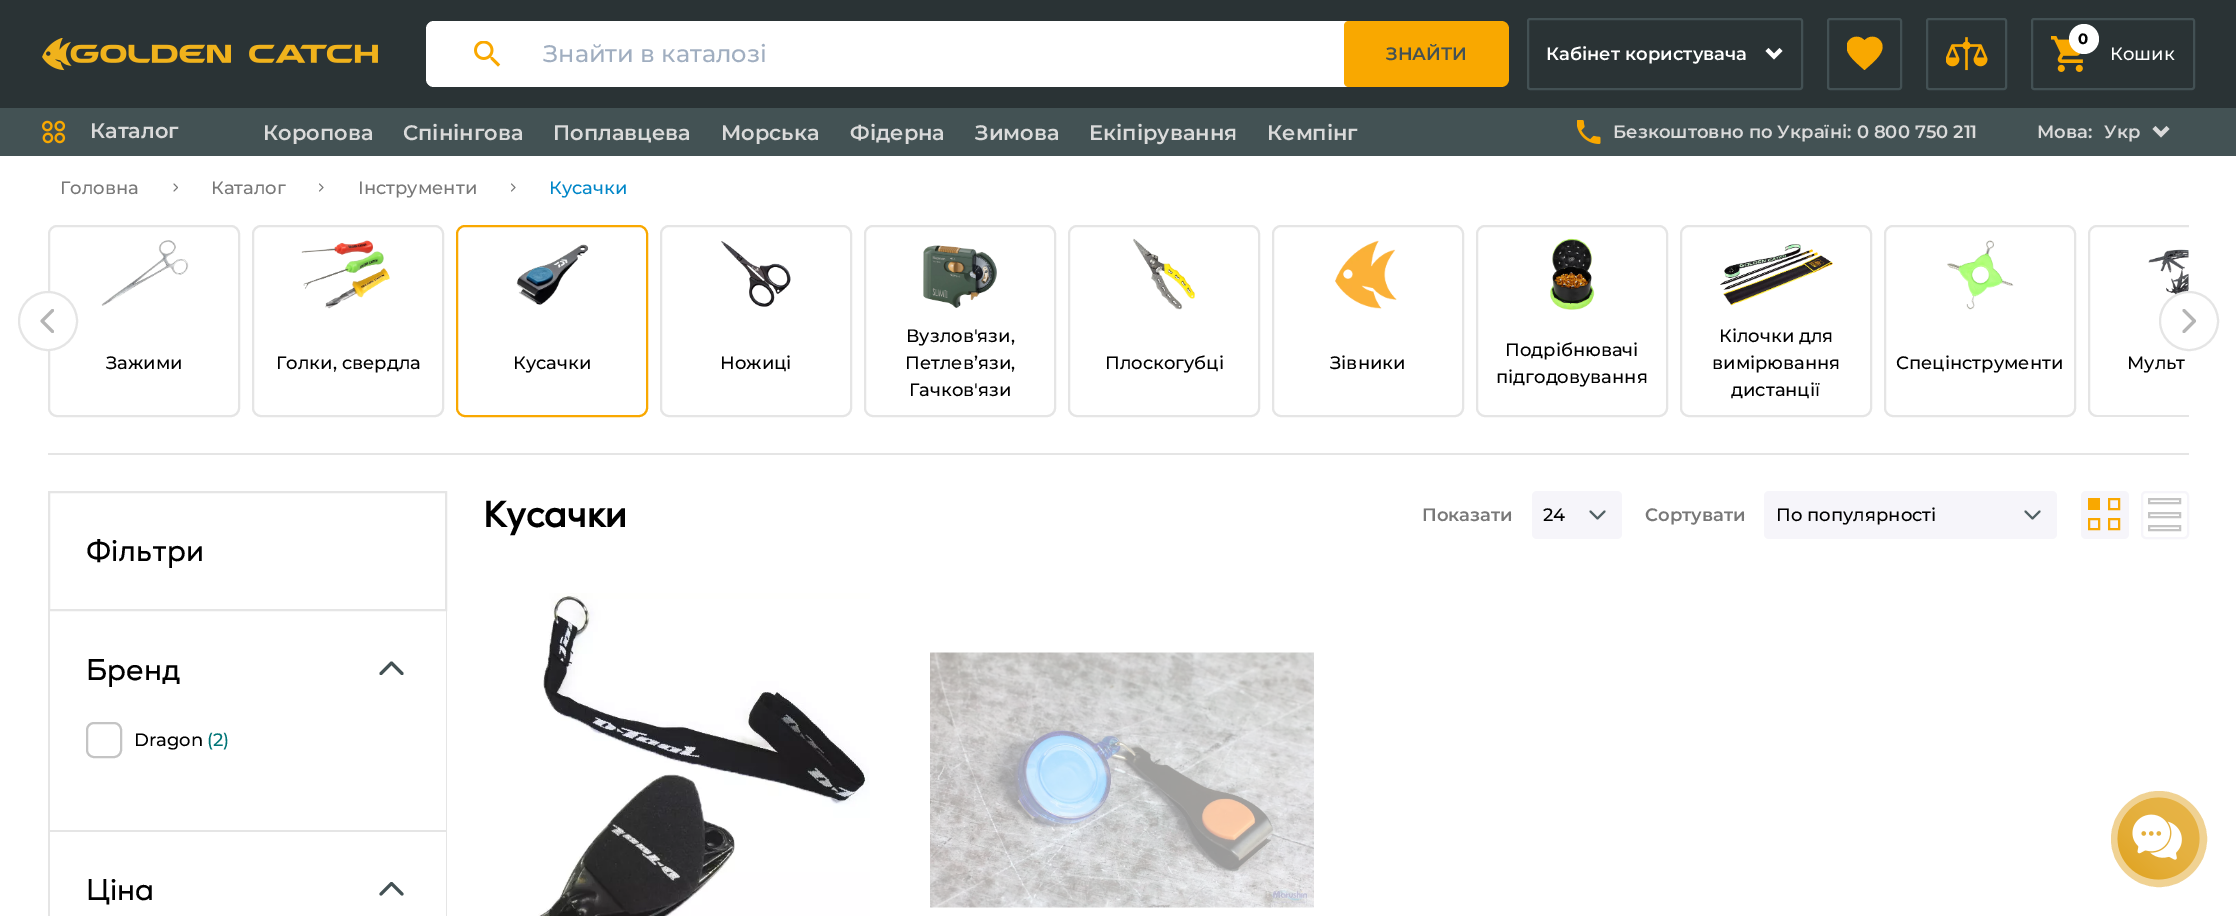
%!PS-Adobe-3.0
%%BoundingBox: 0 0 2236 916
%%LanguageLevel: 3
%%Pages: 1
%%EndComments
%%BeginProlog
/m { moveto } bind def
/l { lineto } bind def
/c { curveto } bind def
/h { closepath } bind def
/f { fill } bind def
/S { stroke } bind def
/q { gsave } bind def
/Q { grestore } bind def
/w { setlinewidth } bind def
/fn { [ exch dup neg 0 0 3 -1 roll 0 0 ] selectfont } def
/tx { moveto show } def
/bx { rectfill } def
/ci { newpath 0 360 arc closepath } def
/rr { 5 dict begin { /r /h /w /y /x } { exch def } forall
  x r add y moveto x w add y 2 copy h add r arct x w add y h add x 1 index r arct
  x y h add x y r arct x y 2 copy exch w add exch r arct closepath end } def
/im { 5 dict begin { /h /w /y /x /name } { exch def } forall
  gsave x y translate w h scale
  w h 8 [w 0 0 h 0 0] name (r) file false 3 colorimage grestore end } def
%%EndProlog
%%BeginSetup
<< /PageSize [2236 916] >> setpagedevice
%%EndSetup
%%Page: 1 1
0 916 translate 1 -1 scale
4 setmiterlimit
1 setgray
0 0 2236 916 bx
0.165 0.2 0.208 setrgbcolor
0 0 2236 108 bx
(image0.raw) 42 38 336 33 im
1 setgray
426 21 1077 66 8 rr f
(image1.raw) 474 41 27 26 im
/Montserrat-Medium 24 fn
0.627 0.682 0.753 setrgbcolor
(Знайти в каталозі) 543 62 tx
0.976 0.659 0 setrgbcolor
1349 21 m 1501 21 l 1505.5 21 1509 24.5 1509 29 c 1509 79 l 1509 83.5 1505.5 87 1501 87 c 1349 87 l 1346 87 1344 85 1344 82 c 1344 26 l 1344 23 1346 21 1349 21 c h f
/Montserrat-SemiBold 18 fn
0.263 0.318 0.329 setrgbcolor
(ЗНАЙТИ) 1386 60 tx
2 w
1528 19 274 70 2 rr S
1 setgray
(Кабінет користувача) 1546 60 tx
1774 53.5 m 1779.5 48 l 1782.5 51 l 1774 59.5 l 1765.5 51 l 1768.5 48 l h f
0.263 0.318 0.329 setrgbcolor
1828 19 73 70 2 rr S
q
1847 36 36 36 rectclip
0.976 0.659 0 setrgbcolor
1864.5 70 m 1859 65 1850.5 58.5 1847.5 51.5 c 1842.5 40 1857 31.5 1864.5 40.5 c 1872 31.5 1886.5 40 1881.5 51.5 c 1878.5 58.5 1870 65 1864.5 70 c h f
Q
1927 19 79 70 2 rr S
(image2.raw) 1946 37 42 34 im
2032 19 162 70 2 rr S
(image3.raw) 2051 36 32 36 im
1 setgray
2084 39 15 ci f
/Montserrat-Bold 15 fn
0 setgray
(0) 2078 44 tx
/Montserrat-Medium 18 fn
1 setgray
(Кошик) 2110 60 tx
0.263 0.322 0.329 setrgbcolor
0 108 2236 48 bx
(image4.raw) 42 120 24 24 im
/Montserrat-SemiBold 21 fn
0.855 setgray
(Каталог) 90 138 tx
(Коропова) 263 140 tx
(Спінінгова) 403 140 tx
(Поплавцева) 553 140 tx
(Морська) 721 140 tx
(Фідерна) 850 140 tx
(Зимова) 975 140 tx
(Екіпірування) 1089 140 tx
(Кемпінг) 1267 140 tx
(image5.raw) 1577 120 24 24 im
/Montserrat-SemiBold 18 fn
(Безкоштовно по Україні: 0 800 750 211) 1613 138 tx
(Мова:) 2037 138 tx
(Укр) 2104 138 tx
2161 131.5 m 2166.5 126 l 2169.5 129 l 2161 137.5 l 2152.5 129 l 2155.5 126 l h f
/Montserrat-Medium 18 fn
0.471 setgray
(Головна) 60 194 tx
1 w
1 setlinecap
1 setlinejoin
174 184 m 177.5 187.5 l 174 191 l S
(Каталог) 211 194 tx
319.5 184 m 323 187.5 l 319.5 191 l S
(Інструменти) 358 194 tx
511.5 184 m 515 187.5 l 511.5 191 l S
0 0.525 0.784 setrgbcolor
(Кусачки) 549 194 tx
0.898 setgray
48 453 2141 2 bx
2 w
0 setlinecap
0 setlinejoin
49 226 190 190 8 rr S
1 setgray
48 321 29 ci q f Q
0.898 setgray
S
0.71 setgray
3 w
1 setlinecap
1 setlinejoin
52.5 331.5 m 42 321 l 52.5 310.5 l S
q
48 225 2141 192 rectclip
0.898 setgray
2 w
0 setlinecap
0 setlinejoin
2089 226 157 190 8 rr S
Q
(image16.raw) 2148 249 41 46 im
1 setgray
2189 321 29 ci q f Q
0.898 setgray
2 w
0 setlinecap
0 setlinejoin
S
0.71 setgray
3 w
1 setlinecap
1 setlinejoin
2184 310.5 m 2194.5 321 l 2184 331.5 l S
(image6.raw) 101 240 88 66 im
0 setgray
(Зажими) 106 369 tx
0.898 setgray
2 w
0 setlinecap
0 setlinejoin
253 226 190 190 8 rr S
(image7.raw) 301 240 89 69 im
0 setgray
(Голки, свердла) 276 369 tx
0.976 0.659 0 setrgbcolor
457 226 190 190 8 rr S
(image8.raw) 516 244 73 61 im
0 setgray
(Кусачки) 513 369 tx
0.898 setgray
661 226 190 190 8 rr S
(image9.raw) 721 241 70 66 im
0 setgray
(Ножиці) 720 369 tx
0.898 setgray
865 226 190 190 8 rr S
(image10.raw) 923 245 74 63 im
0 setgray
(Вузлов'язи,) 906 342 tx
(Петлев’язи,) 905 369 tx
(Гачков'язи) 909 396 tx
0.898 setgray
1069 226 190 190 8 rr S
(image11.raw) 1133 238 62 72 im
0 setgray
(Плоскогубці) 1105 369 tx
0.898 setgray
1273 226 190 190 8 rr S
(image12.raw) 1335 240 62 69 im
0 setgray
(Зівники) 1330 369 tx
0.898 setgray
1477 226 190 190 8 rr S
(image13.raw) 1550 238 45 72 im
0 setgray
(Подрібнювачі) 1505 356 tx
(підгодовування) 1496 383 tx
0.898 setgray
1681 226 190 190 8 rr S
(image14.raw) 1720 244 113 62 im
0 setgray
(Кілочки для) 1719 342 tx
(вимірювання) 1712 369 tx
(дистанції) 1731 396 tx
0.898 setgray
1885 226 190 190 8 rr S
(image15.raw) 1947 240 67 70 im
0 setgray
(Спецінструменти) 1896 369 tx
(Мульт) 2127 369 tx
/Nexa-Bold 36 fn
(Кусачки) 483 527 tx
/Montserrat-SemiBold 18 fn
0.471 setgray
(Показати) 1422 521 tx
0.965 0.961 0.98 setrgbcolor
1532 491 90 48 5 rr f
/Montserrat-Medium 18 fn
0 setgray
(24) 1543 521 tx
0.314 0.376 0.388 setrgbcolor
1 setlinecap
1 setlinejoin
1604.5 511.5 m 1597.5 518.5 l 1590.5 511.5 l S
/Montserrat-SemiBold 18 fn
0.471 setgray
(Сортувати) 1645 521 tx
0.965 0.961 0.98 setrgbcolor
1764 491 293 48 5 rr f
/Montserrat-Medium 18 fn
0 setgray
(По популярності) 1776 521 tx
0.314 0.376 0.388 setrgbcolor
2039.5 511.5 m 2032.5 518.5 l 2025.5 511.5 l S
0.965 0.961 0.98 setrgbcolor
2081 491 48 48 5 rr f
0.976 0.659 0 setrgbcolor
2088 498 12 12 bx
0 setlinecap
0 setlinejoin
2109 499 10 10 rectstroke
2089 519 10 10 rectstroke
2109 519 10 10 rectstroke
0.965 0.961 0.98 setrgbcolor
2142 492 46 46 4 rr S
0.769 setgray
2149 499 31 4 rectstroke
2149 513 31 4 rectstroke
2149 526 31 4 rectstroke
(image17.raw) 538 593 332 323 im
(image18.raw) 930 652 384 256 im
0.898 setgray
49 492 397 118 rectstroke
/Nexa-Regular 30 fn
0 setgray
(Фільтри) 86 561 tx
0.898 setgray
446 611 1 220 bx
48 830 399 2 bx
48 611 2 305 bx
0 setgray
(Бренд) 86 680 tx
0.263 0.318 0.329 setrgbcolor
3 w
1 setlinecap
1 setlinejoin
381 673.5 m 391.5 663 l 402 673.5 l S
0.769 setgray
2 w
0 setlinecap
0 setlinejoin
87 723 34 34 7 rr S
/Montserrat-Medium 18 fn
0 setgray
(Dragon) 134 746 tx
0 0.459 0.467 setrgbcolor
(\(2\)) 207 746 tx
0.898 setgray
446 831 1 85 bx
/Nexa-Regular 30 fn
0 setgray
(Ціна) 86 900 tx
0.263 0.318 0.329 setrgbcolor
3 w
1 setlinecap
1 setlinejoin
381 894 m 391.5 883.5 l 402 894 l S
0.941 0.824 0.576 setrgbcolor
12 w
0 setlinecap
0 setlinejoin
2159 839 42 ci S
(image19.raw) 2117 797 83 83 im
showpage
%%EOF
